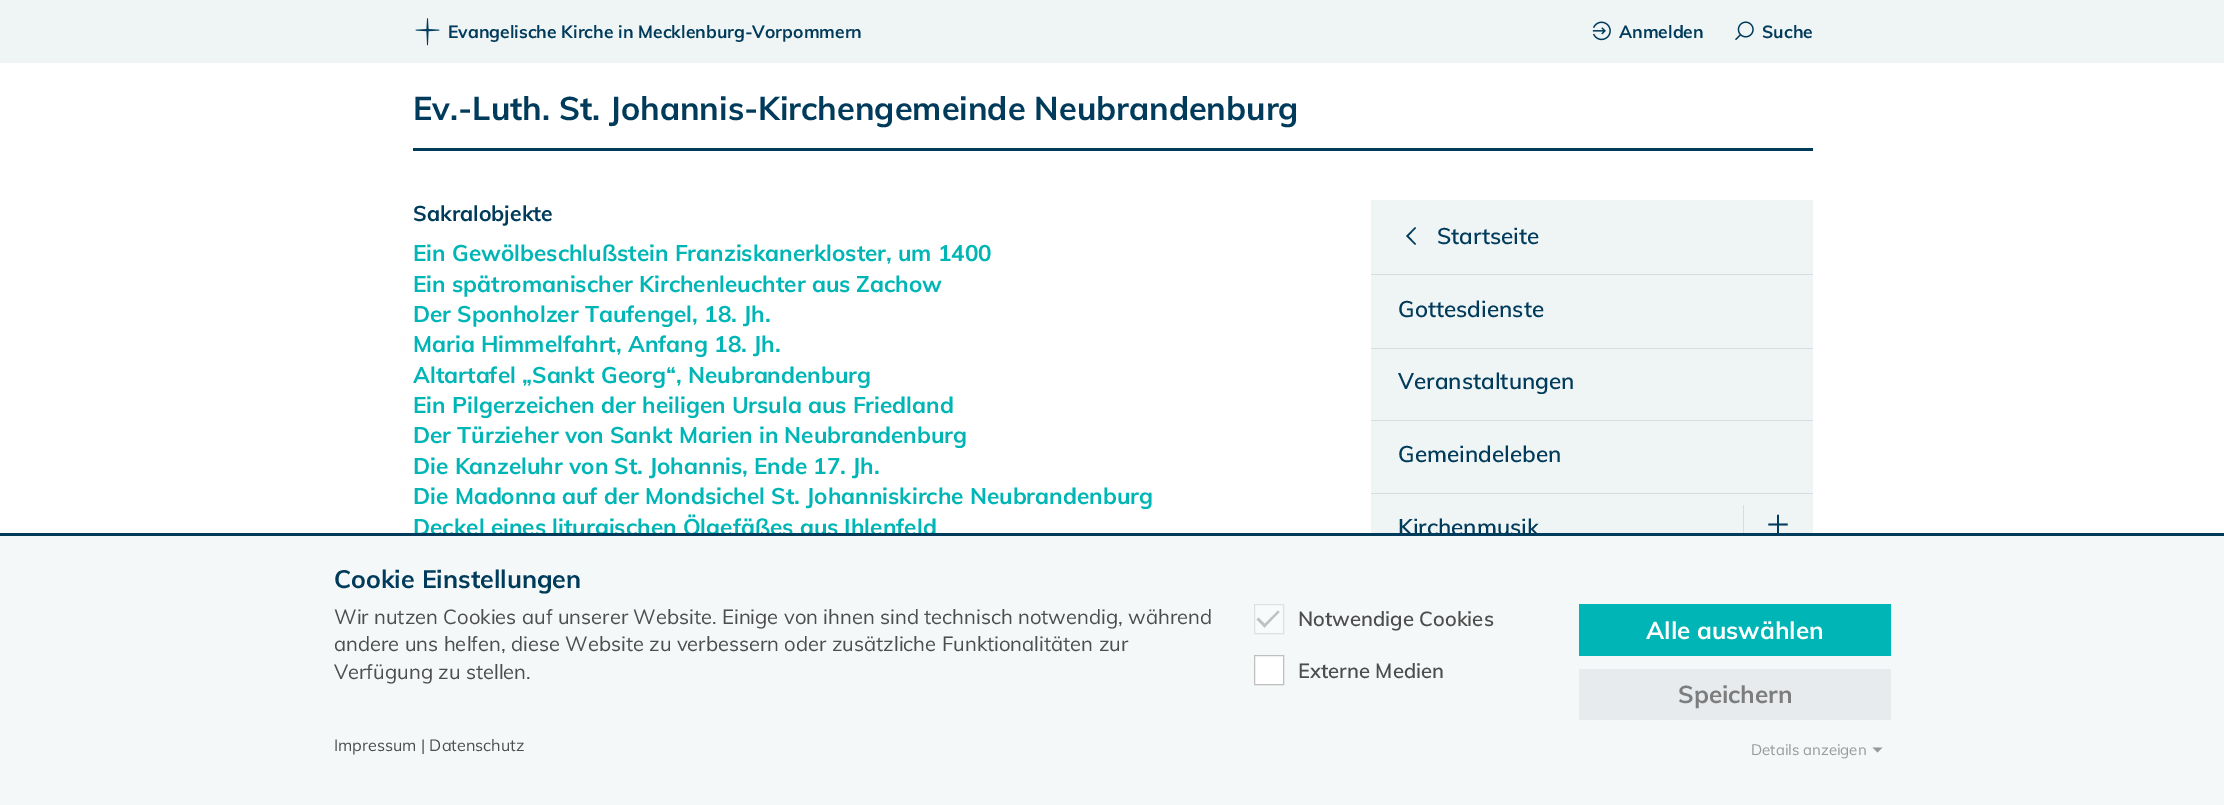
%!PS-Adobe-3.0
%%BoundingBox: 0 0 2224 805
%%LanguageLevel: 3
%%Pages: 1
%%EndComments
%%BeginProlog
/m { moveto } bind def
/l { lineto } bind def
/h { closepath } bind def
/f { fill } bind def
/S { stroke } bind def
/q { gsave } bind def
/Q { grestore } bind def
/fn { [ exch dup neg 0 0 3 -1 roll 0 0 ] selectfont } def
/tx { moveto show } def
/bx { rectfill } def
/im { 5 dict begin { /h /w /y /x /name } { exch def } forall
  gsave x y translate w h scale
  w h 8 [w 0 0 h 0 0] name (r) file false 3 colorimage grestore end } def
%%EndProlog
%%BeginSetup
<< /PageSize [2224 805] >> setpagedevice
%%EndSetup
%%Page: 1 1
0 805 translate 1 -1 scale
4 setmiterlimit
1 setgray
0 0 2224 805 bx
0.937 0.957 0.957 setrgbcolor
0 0 2224 63 bx
(image0.raw) 415 18 25 28 im
/Muli-Bold 17.5 fn
0 0.231 0.357 setrgbcolor
(Evangelische Kirche in Mecklenburg-Vorpommern) 448 38 tx
(image1.raw) 1592 21 19 20 im
(Anmelden) 1619 38 tx
(image2.raw) 1735 21 19 20 im
(Suche) 1762 38 tx
/Muli-Bold 32.5 fn
(Ev.-Luth. St. Johannis-Kirchengemeinde Neubrandenburg) 413 120 tx
413 148 1400 3 bx
/Muli-Bold 21.25 fn
(Sakralobjekte) 413 221 tx
/Muli-Bold 22.5 fn
0 0.71 0.71 setrgbcolor
(Ein Gewölbeschlußstein Franziskanerkloster, um 1400) 413 261 tx
(Ein spätromanischer Kirchenleuchter aus Zachow) 413 292 tx
(Der Sponholzer Taufengel, 18. Jh.) 413 322 tx
(Maria Himmelfahrt, Anfang 18. Jh.) 413 352 tx
(Altartafel „Sankt Georg“, Neubrandenburg) 413 383 tx
(Ein Pilgerzeichen der heiligen Ursula aus Friedland) 413 413 tx
(Der Türzieher von Sankt Marien in Neubrandenburg) 413 443 tx
(Die Kanzeluhr von St. Johannis, Ende 17. Jh.) 413 474 tx
(Die Madonna auf der Mondsichel St. Johanniskirche Neubrandenburg) 413 504 tx
(Deckel eines liturgischen Ölgefäßes aus Ihlenfeld) 413 535 tx
0.937 0.957 0.957 setrgbcolor
1371 200 442 333 bx
0 0.231 0.357 setrgbcolor
1415 245 m 1406 236 l 1415 227 l 1416 228 l 1408.5 236 l 1416 244 l h f
/Muli-SemiBold 22.5 fn
(Startseite) 1437 244 tx
0.831 0.867 0.875 setrgbcolor
1371 274 442 1 bx
0 0.231 0.357 setrgbcolor
(Gottesdienste) 1398 317 tx
0.831 0.867 0.875 setrgbcolor
1371 348 442 1 bx
0 0.231 0.357 setrgbcolor
(Veranstaltungen) 1398 389 tx
0.831 0.867 0.875 setrgbcolor
1371 420 442 1 bx
0 0.231 0.357 setrgbcolor
(Gemeindeleben) 1398 462 tx
0.831 0.867 0.875 setrgbcolor
1371 493 442 1 bx
0 0.231 0.357 setrgbcolor
(Kirchenmusik) 1398 535 tx
0.831 0.867 0.875 setrgbcolor
1743 505 1 28 bx
/Muli-Light 40 fn
0 0.231 0.357 setrgbcolor
(+) 1766 536 tx
0.957 0.973 0.973 setrgbcolor
0 536 2224 269 bx
0 0.231 0.357 setrgbcolor
0 533 2224 3 bx
/Muli-Bold 25 fn
(Cookie Einstellungen) 334 588 tx
/Muli-Regular 20.25 fn
0.302 setgray
(Wir nutzen Cookies auf unserer Website. Einige von ihnen sind technisch notwendig, während) 334 624 tx
(andere uns helfen, diese Website zu verbessern oder zusätzliche Funktionalitäten zur) 334 651 tx
(Verfügung zu stellen.) 334 679 tx
0.973 0.984 0.984 setrgbcolor
1254.5 604.5 m 1283.5 604.5 l 1283.5 633.5 l 1254.5 633.5 l h q f Q
0.875 0.882 0.882 setrgbcolor
S
0.749 0.761 0.761 setrgbcolor
1278 610.5 m 1279.5 612 l 1264.5 627.5 l 1263 625.5 l h f
1258.5 617.5 m 1266.5 625.5 l 1264.5 627.5 l 1256.5 619.5 l h f
/Muli-SemiBold 20.25 fn
0.302 setgray
(Notwendige Cookies) 1298 626 tx
1 setgray
1254.5 655.5 m 1283.5 655.5 l 1283.5 684.5 l 1254.5 684.5 l h q f Q
0.749 setgray
S
0.302 setgray
(Externe Medien) 1298 678 tx
0 0.71 0.71 setrgbcolor
1579 604 312 52 bx
/Muli-Bold 24.25 fn
1 setgray
(Alle auswählen) 1646 639 tx
0.906 0.922 0.933 setrgbcolor
1579 669 312 51 bx
0.49 setgray
(Speichern) 1678 703 tx
/Muli-Regular 15 fn
0.6 setgray
(Details anzeigen) 1751 755 tx
1872.5 747.5 m 1882.5 747.5 l 1877.5 752.5 l h f
/Muli-Regular 16.25 fn
0.302 setgray
(Impressum | Datenschutz) 334 751 tx
showpage
%%EOF
